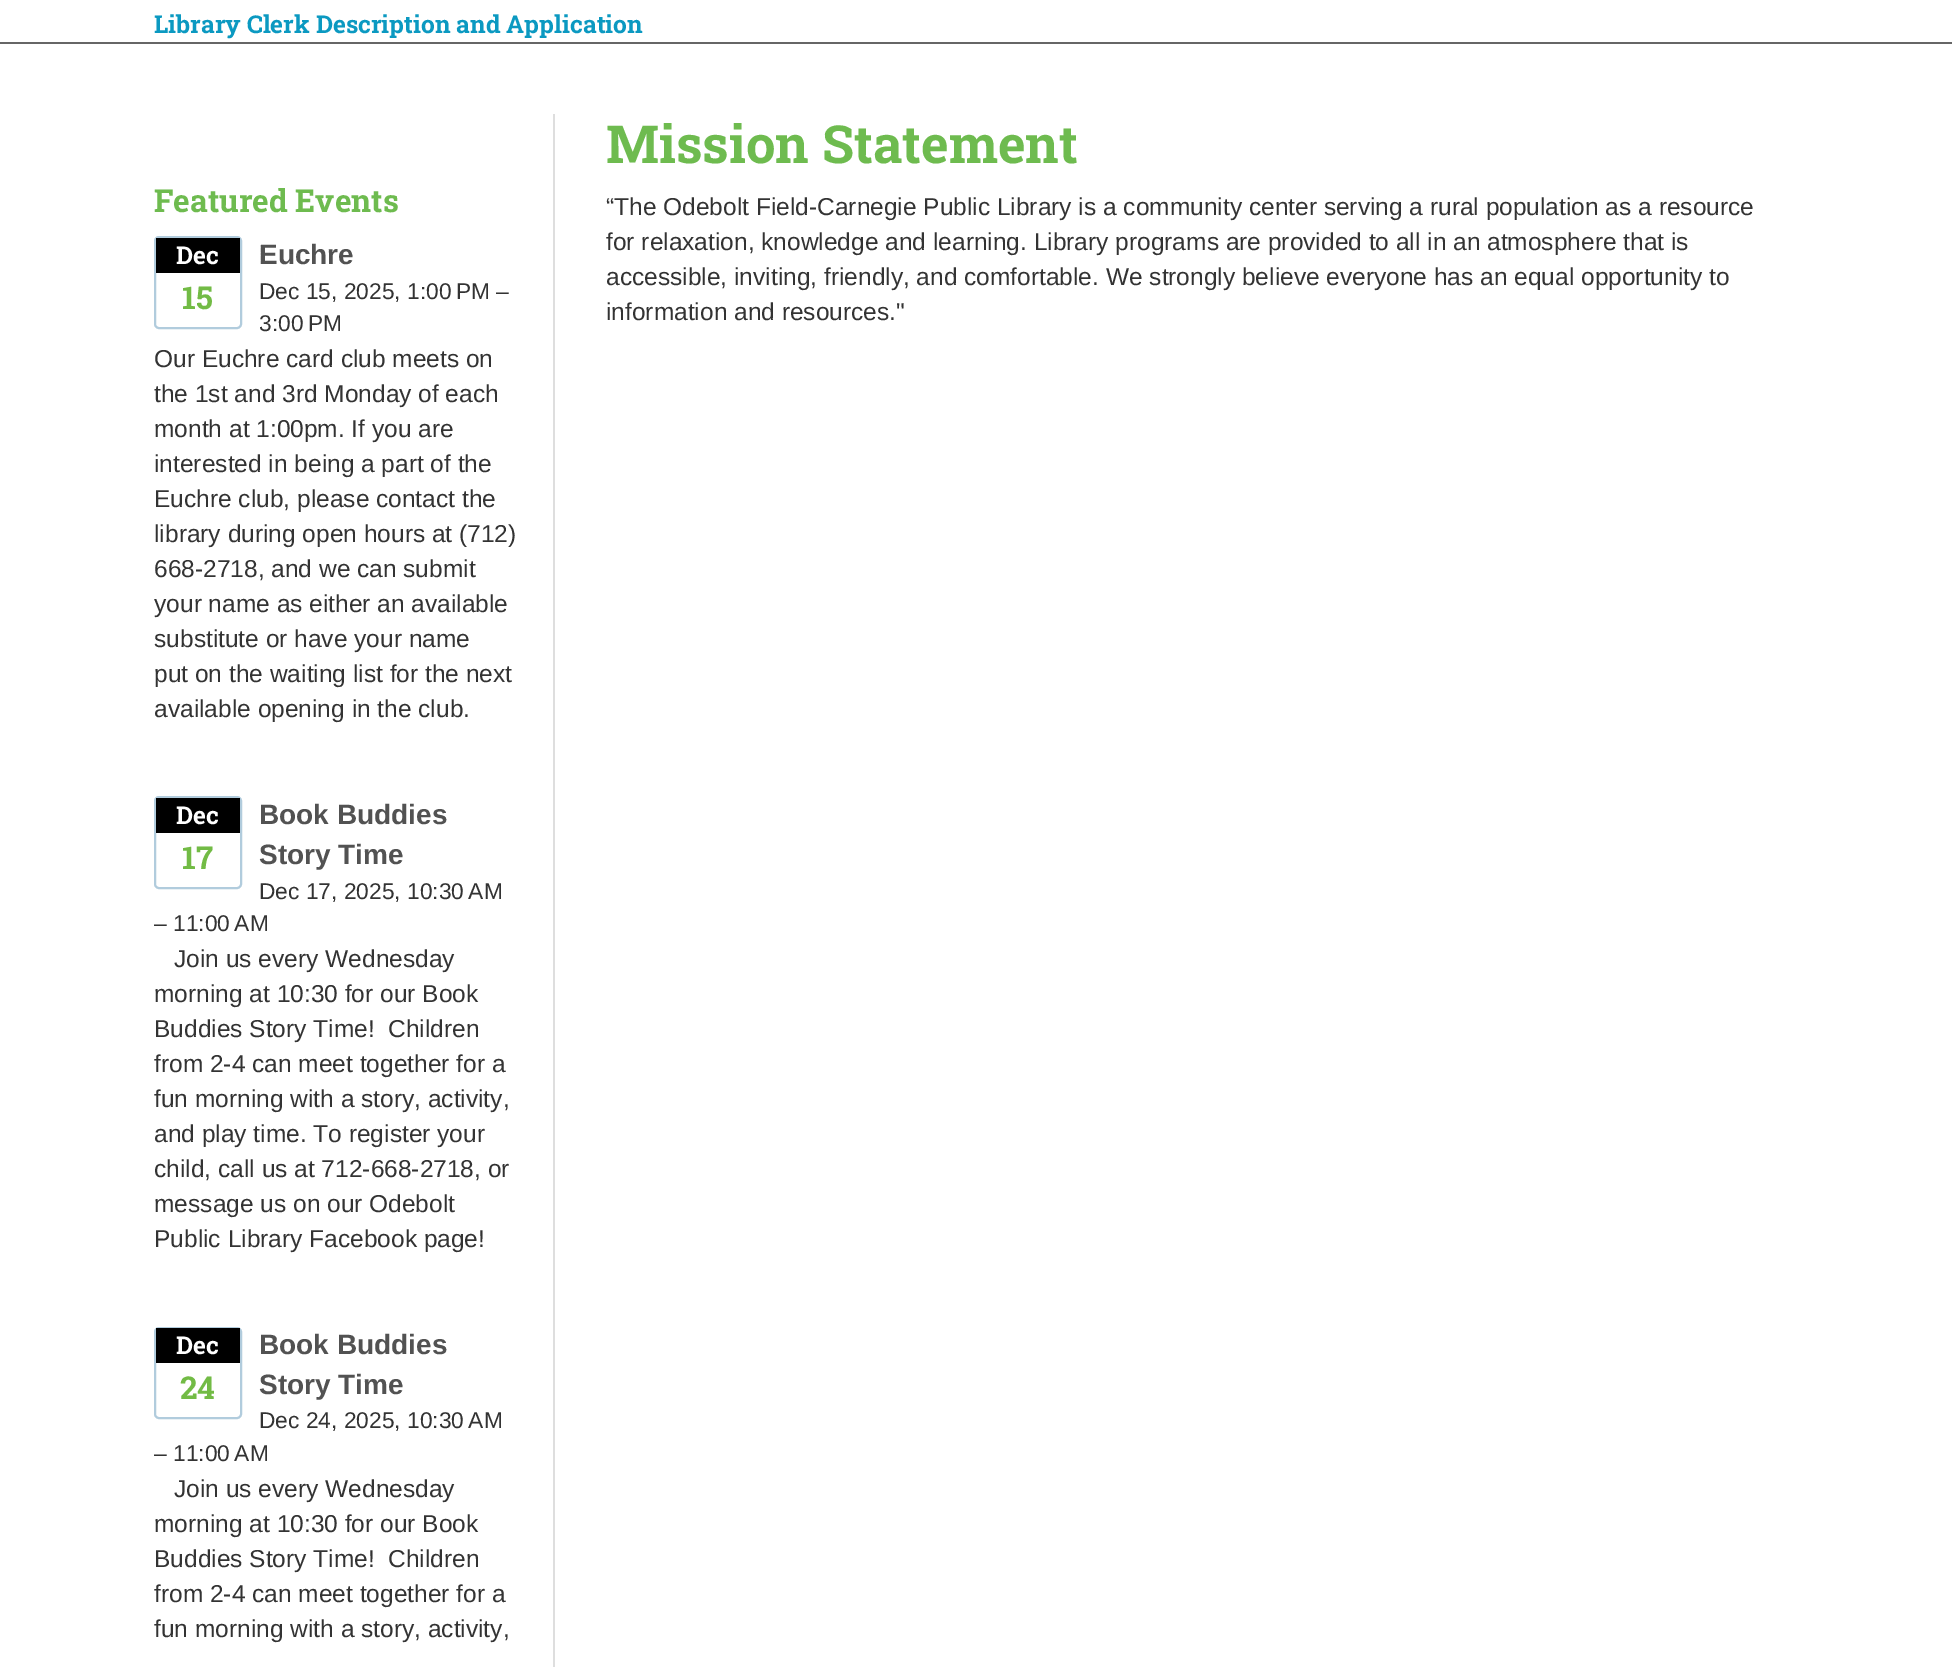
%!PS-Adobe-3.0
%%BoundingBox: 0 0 1952 1667
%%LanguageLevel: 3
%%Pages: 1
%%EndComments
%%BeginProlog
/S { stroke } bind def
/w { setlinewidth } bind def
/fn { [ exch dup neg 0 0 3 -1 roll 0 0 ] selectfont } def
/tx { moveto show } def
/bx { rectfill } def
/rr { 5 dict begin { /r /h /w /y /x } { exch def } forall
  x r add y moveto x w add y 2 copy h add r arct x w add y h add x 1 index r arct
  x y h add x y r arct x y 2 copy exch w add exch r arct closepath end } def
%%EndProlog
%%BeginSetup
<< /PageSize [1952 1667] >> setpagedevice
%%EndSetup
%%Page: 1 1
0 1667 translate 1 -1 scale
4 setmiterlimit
1 setgray
0 0 1952 1667 bx
0.4 setgray
0 42 1952 2 bx
/RobotoSlab-Bold 24.5 fn
0.043 0.6 0.757 setrgbcolor
(Library Clerk Description and Application) 154 33 tx
/RobotoSlab-Bold 31.5 fn
0.431 0.733 0.31 setrgbcolor
(Featured Events) 154 212 tx
0.694 0.8 0.867 setrgbcolor
2 w
155 237 86 91 4 rr S
0 setgray
156 238 84 35 bx
/RobotoSlab-Bold 24.5 fn
1 setgray
(Dec) 176 264 tx
/RobotoSlab-Bold 31.5 fn
0.447 0.733 0.271 setrgbcolor
(15) 182 309 tx
/LiberationSans-Bold 28 fn
0.322 setgray
(Euchre) 259 264 tx
/LiberationSans-Regular 22.75 fn
0.2 setgray
(Dec 15, 2025, 1:00 PM –) 259 299 tx
(3:00 PM) 259 331 tx
/LiberationSans-Regular 24.5 fn
(Our Euchre card club meets on) 154 367 tx
(the 1st and 3rd Monday of each) 154 402 tx
(month at 1:00pm. If you are) 154 437 tx
(interested in being a part of the) 154 472 tx
(Euchre club, please contact the) 154 507 tx
(library during open hours at \(712\)) 154 542 tx
(668-2718, and we can submit) 154 577 tx
(your name as either an available) 154 612 tx
(substitute or have your name) 154 647 tx
(put on the waiting list for the next) 154 682 tx
(available opening in the club.) 154 717 tx
0.694 0.8 0.867 setrgbcolor
155 797 86 91 4 rr S
0 setgray
156 798 84 35 bx
/RobotoSlab-Bold 24.5 fn
1 setgray
(Dec) 176 824 tx
/RobotoSlab-Bold 31.5 fn
0.447 0.733 0.271 setrgbcolor
(17) 182 869 tx
/LiberationSans-Bold 28 fn
0.322 setgray
(Book Buddies) 259 824 tx
(Story Time) 259 864 tx
/LiberationSans-Regular 22.75 fn
0.2 setgray
(Dec 17, 2025, 10:30 AM) 259 899 tx
(– 11:00 AM) 154 931 tx
/LiberationSans-Regular 24.5 fn
(Join us every Wednesday) 174 967 tx
(morning at 10:30 for our Book) 154 1002 tx
(Buddies Story Time!  Children) 154 1037 tx
(from 2-4 can meet together for a) 154 1072 tx
(fun morning with a story, activity,) 154 1107 tx
(and play time. To register your) 154 1142 tx
(child, call us at 712-668-2718, or) 154 1177 tx
(message us on our Odebolt) 154 1212 tx
(Public Library Facebook page!) 154 1247 tx
0.694 0.8 0.867 setrgbcolor
155 1328 86 90 4 rr S
0 setgray
156 1328 84 35 bx
/RobotoSlab-Bold 24.5 fn
1 setgray
(Dec) 176 1354 tx
/RobotoSlab-Bold 31.5 fn
0.447 0.733 0.271 setrgbcolor
(24) 180 1399 tx
/LiberationSans-Bold 28 fn
0.322 setgray
(Book Buddies) 259 1354 tx
(Story Time) 259 1394 tx
/LiberationSans-Regular 22.75 fn
0.2 setgray
(Dec 24, 2025, 10:30 AM) 259 1428 tx
(– 11:00 AM) 154 1461 tx
/LiberationSans-Regular 24.5 fn
(Join us every Wednesday) 174 1497 tx
(morning at 10:30 for our Book) 154 1532 tx
(Buddies Story Time!  Children) 154 1567 tx
(from 2-4 can meet together for a) 154 1602 tx
(fun morning with a story, activity,) 154 1637 tx
0.871 setgray
553 114 2 1553 bx
/RobotoSlab-Bold 52.5 fn
0.431 0.733 0.31 setrgbcolor
(Mission Statement) 606 163 tx
/LiberationSans-Regular 24.5 fn
0.2 setgray
(“The Odebolt Field-Carnegie Public Library is a community center serving a rural population as a resource) 606 215 tx
(for relaxation, knowledge and learning. Library programs are provided to all in an atmosphere that is) 606 250 tx
(accessible, inviting, friendly, and comfortable. We strongly believe everyone has an equal opportunity to) 606 285 tx
(information and resources.") 606 320 tx
showpage
%%EOF
